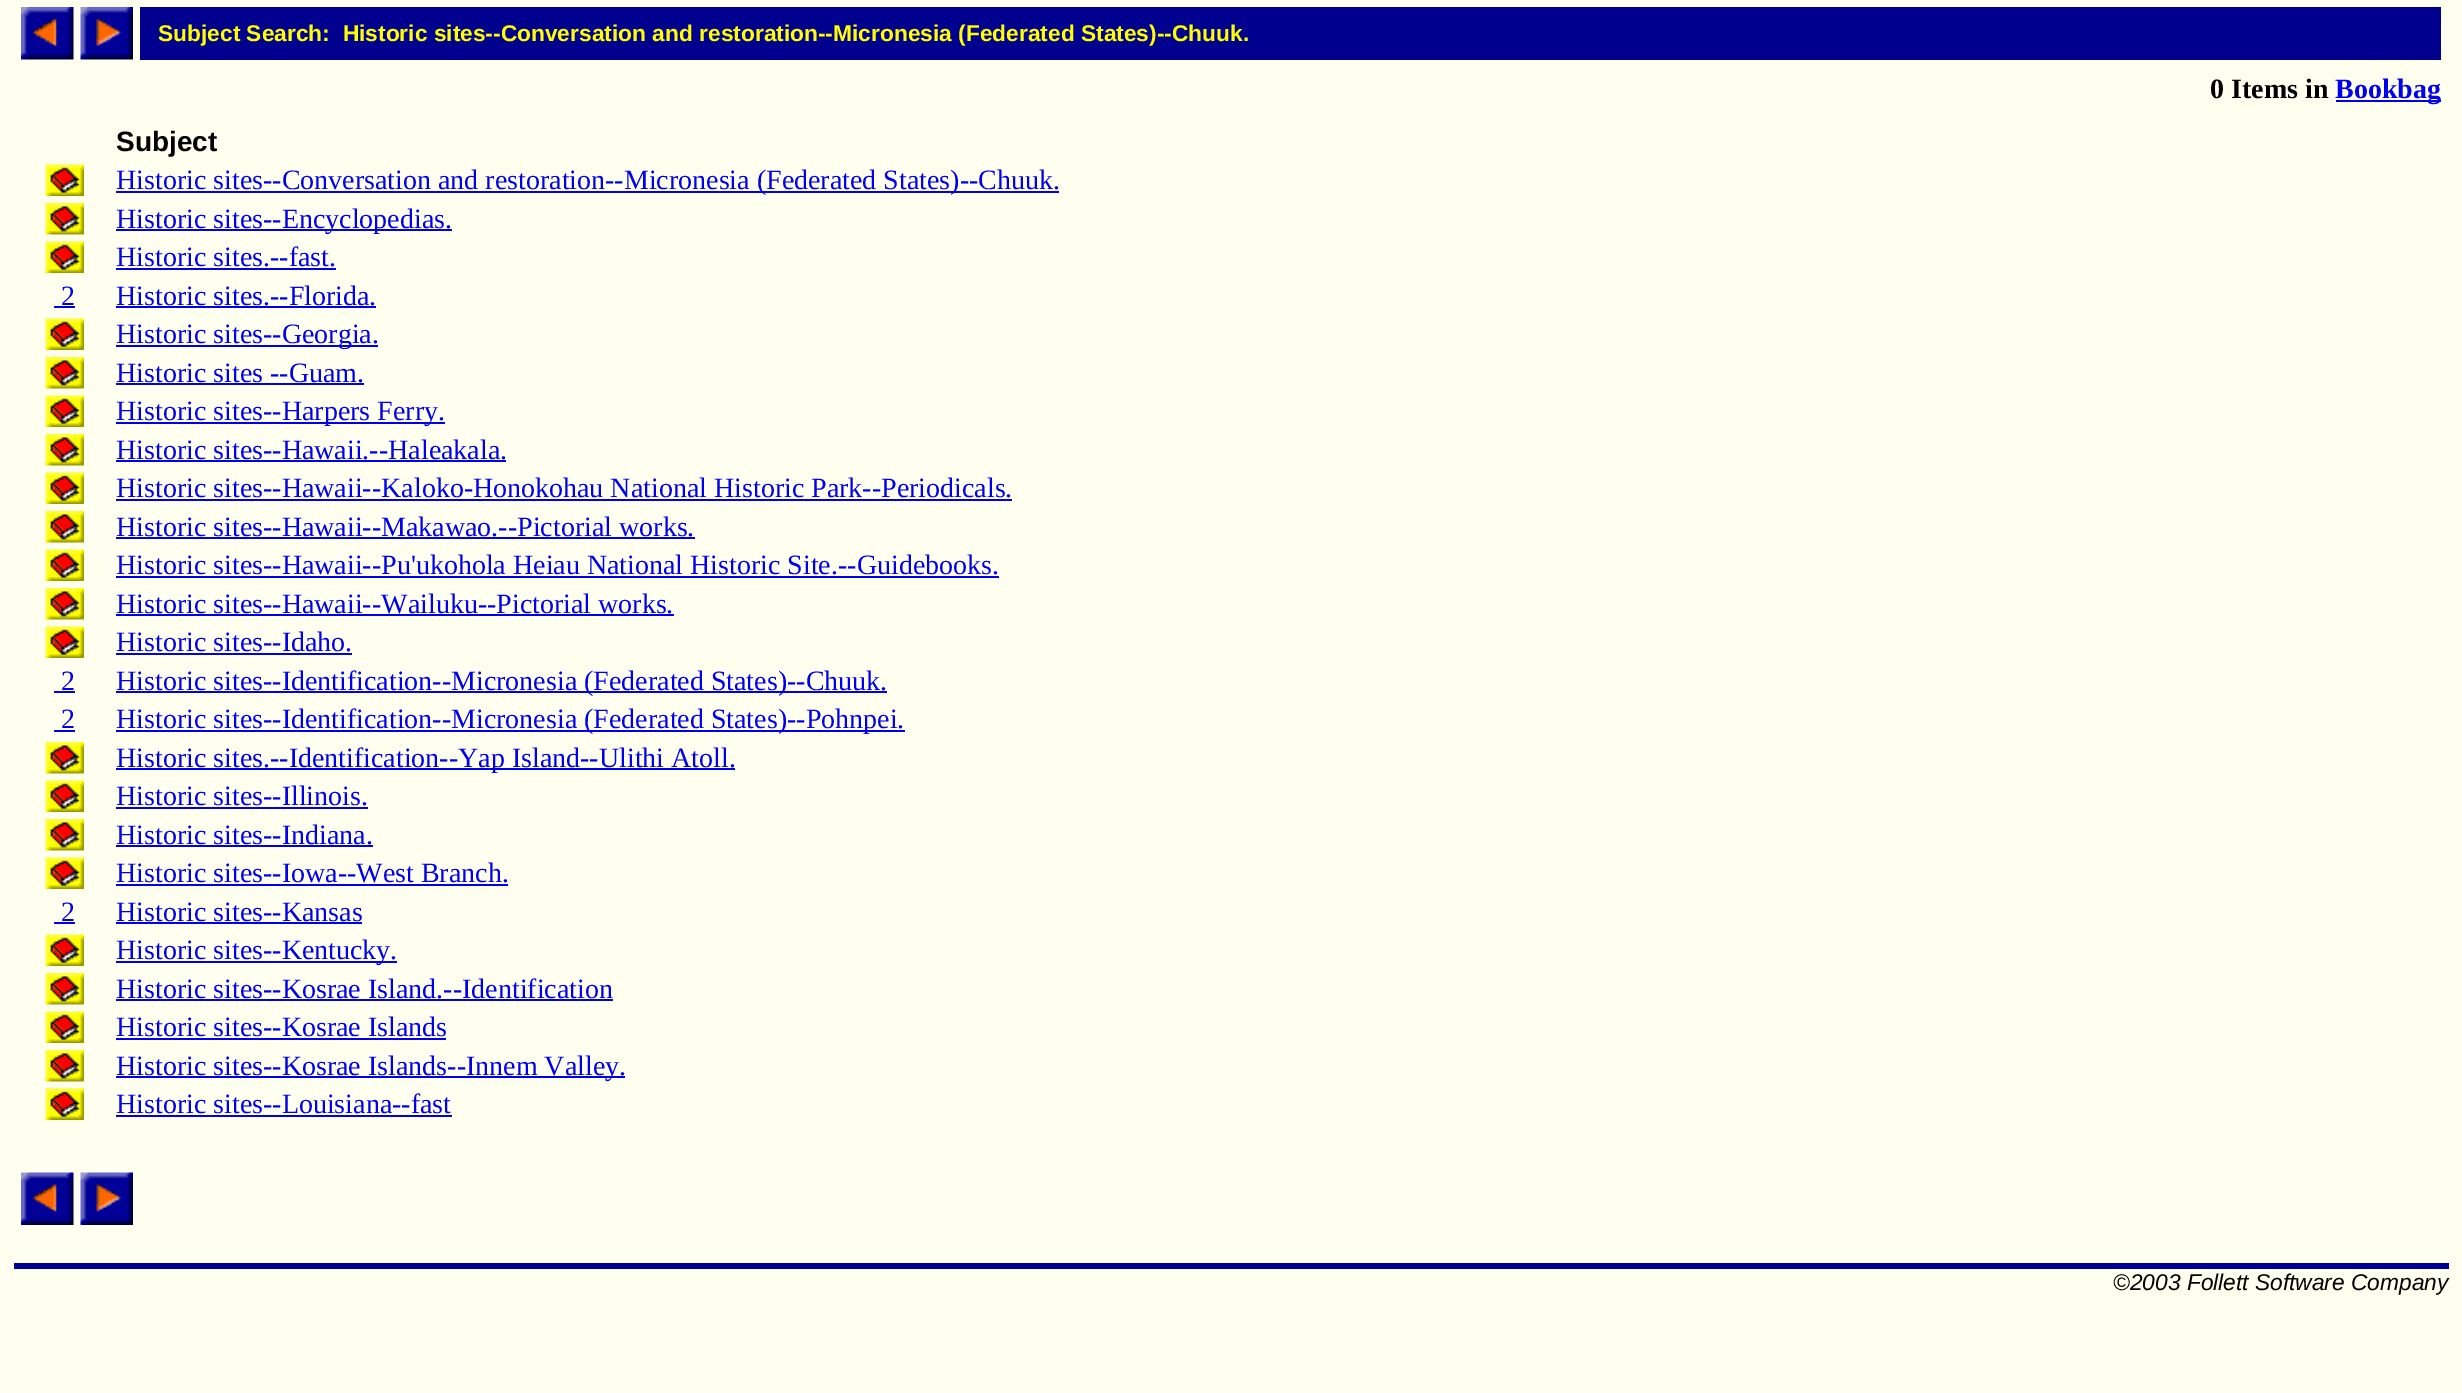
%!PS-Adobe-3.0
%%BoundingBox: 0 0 2462 1393
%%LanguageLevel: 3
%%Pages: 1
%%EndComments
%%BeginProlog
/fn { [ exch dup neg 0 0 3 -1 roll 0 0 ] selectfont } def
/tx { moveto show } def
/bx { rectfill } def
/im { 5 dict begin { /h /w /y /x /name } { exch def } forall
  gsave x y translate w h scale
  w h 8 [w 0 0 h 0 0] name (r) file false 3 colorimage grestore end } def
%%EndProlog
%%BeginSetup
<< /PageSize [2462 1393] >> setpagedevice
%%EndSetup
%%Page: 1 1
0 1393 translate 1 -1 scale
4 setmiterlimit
1 1 0.937 setrgbcolor
0 0 2462 1393 bx
(image0.raw) 21 7 53 53 im
(image1.raw) 80 7 53 53 im
0 0 0.557 setrgbcolor
140 7 2301 53 bx
/LiberationSans-Bold 22.75 fn
1 1 0 setrgbcolor
(Subject Search:  Historic sites--Conversation and restoration--Micronesia \(Federated States\)--Chuuk.) 158 41 tx
/LiberationSerif-Bold 28 fn
0 setgray
(0 Items in) 2210 98 tx
0 0 0.933 setrgbcolor
2336 100 105 2 bx
(Bookbag) 2335 98 tx
/LiberationSans-Bold 28 fn
0 setgray
(Subject) 116 151 tx
(image2.raw) 45 164 39 32 im
0 0 0.933 setrgbcolor
116 191 943 2 bx
/LiberationSerif-Regular 28 fn
(Historic sites--Conversation and restoration--Micronesia \(Federated States\)--Chuuk.) 116 189 tx
(image3.raw) 45 203 39 32 im
116 229 336 2 bx
(Historic sites--Encyclopedias.) 116 228 tx
(image2.raw) 45 241 39 32 im
(Historic sites.--fast.) 116 266 tx
116 268 220 2 bx
(2) 61 305 tx
54 306 21 2 bx
(Historic sites.--Florida.) 116 305 tx
116 306 260 2 bx
(image2.raw) 45 318 39 32 im
116 345 262 2 bx
(Historic sites--Georgia.) 116 343 tx
(image4.raw) 45 357 39 32 im
(Historic sites --Guam.) 116 382 tx
116 383 248 2 bx
(image2.raw) 45 395 39 32 im
116 422 329 2 bx
(Historic sites--Harpers Ferry.) 116 420 tx
(image4.raw) 45 434 39 32 im
(Historic sites--Hawaii.--Haleakala.) 116 459 tx
116 460 390 2 bx
(image2.raw) 45 472 39 32 im
(Historic sites--Hawaii--Kaloko-Honokohau National Historic Park--Periodicals.) 116 497 tx
116 499 896 2 bx
(image4.raw) 45 511 39 32 im
(Historic sites--Hawaii--Makawao.--Pictorial works.) 116 536 tx
116 537 579 2 bx
(image2.raw) 45 549 39 32 im
(Historic sites--Hawaii--Pu'ukohola Heiau National Historic Site.--Guidebooks.) 116 574 tx
116 576 883 2 bx
(image4.raw) 45 588 39 32 im
(Historic sites--Hawaii--Wailuku--Pictorial works.) 116 613 tx
116 614 558 2 bx
(image2.raw) 45 626 39 32 im
(Historic sites--Idaho.) 116 651 tx
116 653 236 2 bx
(2) 61 690 tx
54 691 21 2 bx
116 691 771 2 bx
(Historic sites--Identification--Micronesia \(Federated States\)--Chuuk.) 116 690 tx
(2) 61 728 tx
54 730 21 2 bx
116 730 789 2 bx
(Historic sites--Identification--Micronesia \(Federated States\)--Pohnpei.) 116 728 tx
(image4.raw) 45 742 39 32 im
116 768 619 2 bx
(Historic sites.--Identification--Yap Island--Ulithi Atoll.) 116 767 tx
(image2.raw) 45 780 39 32 im
(Historic sites--Illinois.) 116 805 tx
116 807 252 2 bx
(image4.raw) 45 819 39 32 im
(Historic sites--Indiana.) 116 844 tx
116 845 257 2 bx
(image2.raw) 45 857 39 32 im
(Historic sites--Iowa--West Branch.) 116 882 tx
116 884 392 2 bx
(2) 61 921 tx
54 922 21 2 bx
(Historic sites--Kansas) 116 921 tx
116 922 246 2 bx
(image2.raw) 45 934 39 32 im
116 961 281 2 bx
(Historic sites--Kentucky.) 116 959 tx
(image4.raw) 45 973 39 32 im
(Historic sites--Kosrae Island.--Identification) 116 998 tx
116 999 497 2 bx
(image2.raw) 45 1011 39 32 im
(Historic sites--Kosrae Islands) 116 1036 tx
116 1038 330 2 bx
(image4.raw) 45 1050 39 32 im
116 1076 509 2 bx
(Historic sites--Kosrae Islands--Innem Valley.) 116 1075 tx
(image2.raw) 45 1088 39 32 im
(Historic sites--Louisiana--fast) 116 1113 tx
116 1115 336 2 bx
(image5.raw) 21 1172 53 53 im
(image6.raw) 80 1172 53 53 im
0 0 0.6 setrgbcolor
14 1263 2435 6 bx
/LiberationSans-Italic 22.75 fn
0 setgray
(©2003 Follett Software Company) 2113 1290 tx
showpage
%%EOF
